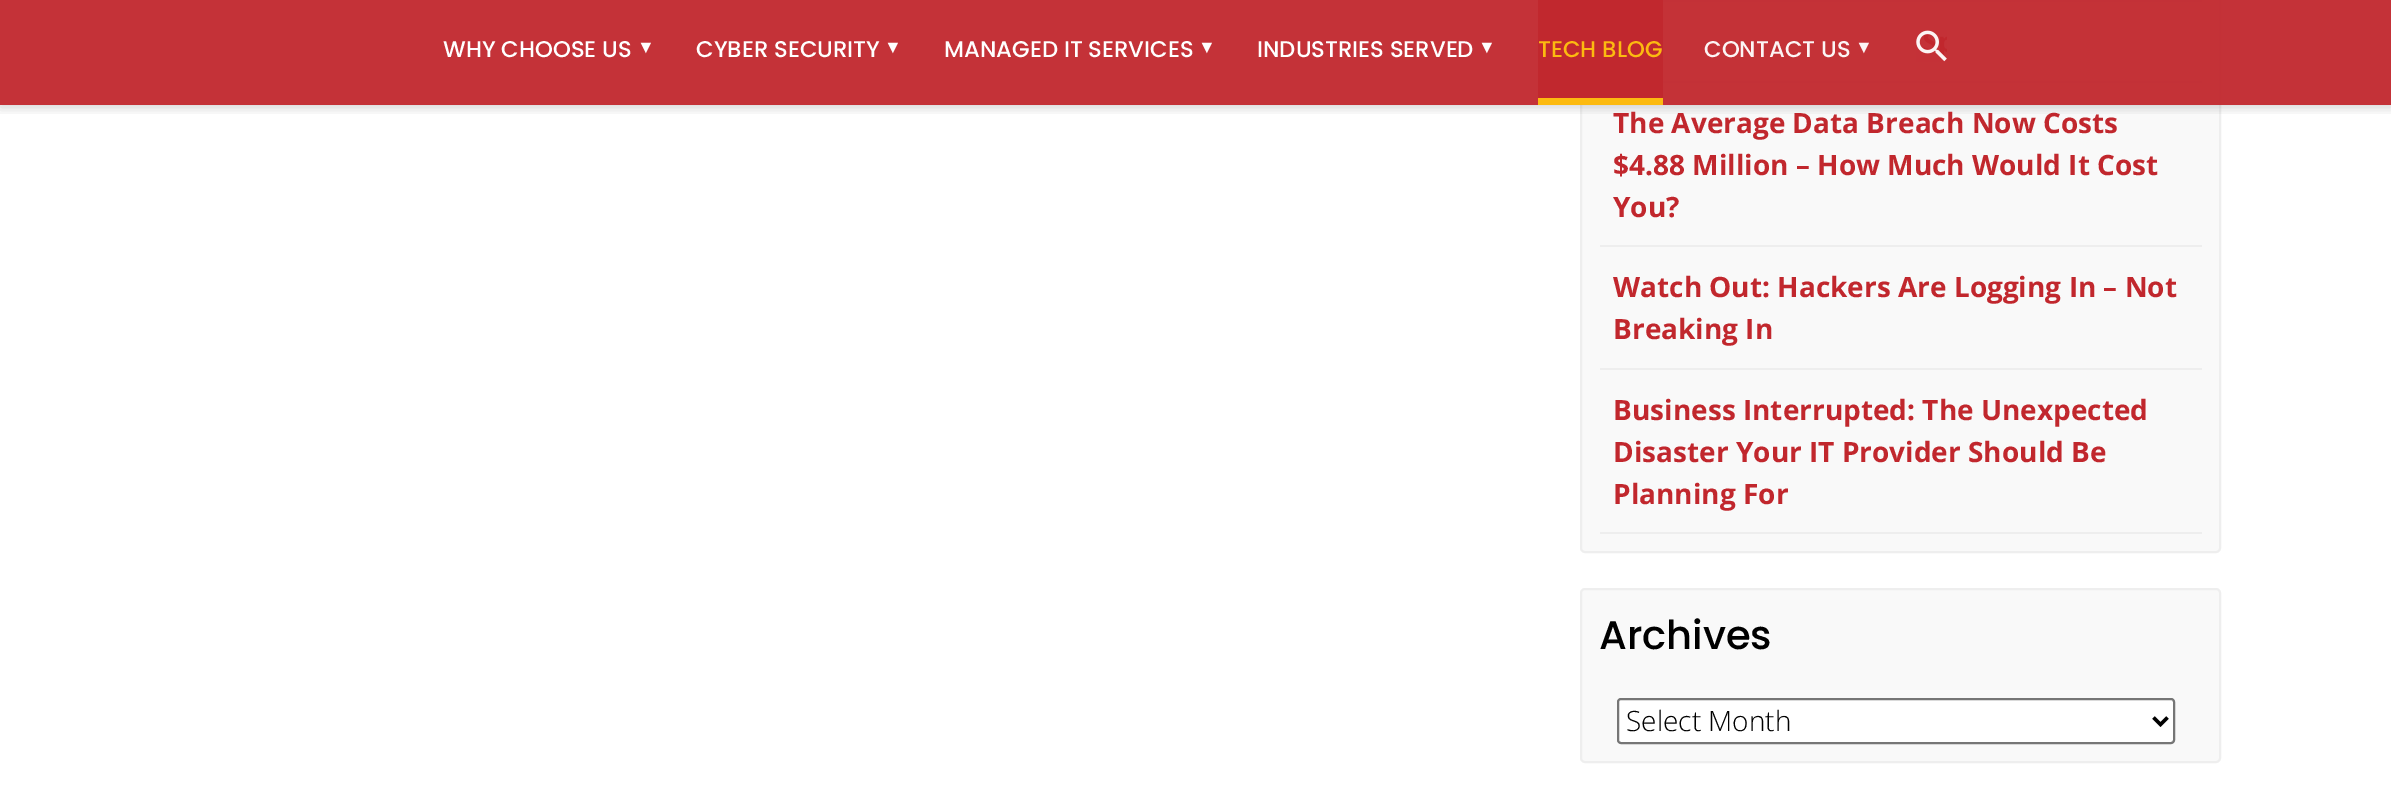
%!PS-Adobe-3.0
%%BoundingBox: 0 0 2391 800
%%LanguageLevel: 3
%%Pages: 1
%%EndComments
%%BeginProlog
/m { moveto } bind def
/l { lineto } bind def
/f { fill } bind def
/S { stroke } bind def
/q { gsave } bind def
/Q { grestore } bind def
/w { setlinewidth } bind def
/fn { [ exch dup neg 0 0 3 -1 roll 0 0 ] selectfont } def
/tx { moveto show } def
/bx { rectfill } def
/al { dup .setfillconstantalpha .setstrokeconstantalpha } def
/rr { 5 dict begin { /r /h /w /y /x } { exch def } forall
  x r add y moveto x w add y 2 copy h add r arct x w add y h add x 1 index r arct
  x y h add x y r arct x y 2 copy exch w add exch r arct closepath end } def
/sh { 12 dict begin { /a /b /q /h /w /y /x } { exch def } forall gsave /was 0 def
  9 -2 -9 { dup b mul 4 div /e exch def 1 sub .425 mul 2.718 exch exp 1 add a .99 .min exch div /now exch def
    1 1 now sub 1 was sub div sub al /was now def
    w h .min e 2 mul add 0 gt { x e sub y e sub w e 2 mul add h e 2 mul add
      q e add b .6 mul add w h .min 2 div e add .min 0 .max rr fill } if } for grestore end } def
/im { 5 dict begin { /h /w /y /x /name } { exch def } forall
  gsave x y translate w h scale
  w h 8 [w 0 0 h 0 0] name (r) file false 3 colorimage grestore end } def
%%EndProlog
%%BeginSetup
<< /PageSize [2391 800] /PageUsesTransparency true >> setpagedevice
%%EndSetup
%%Page: 1 1
0 .pushpdf14devicefilter
0 800 translate 1 -1 scale
4 setmiterlimit
1 setgray
0 0 2391 800 bx
0.976 setgray
1581 -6 639 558 4 rr q f Q
0.933 setgray
2 w
S
1600 0 602 2 bx
1600 81 602 2 bx
q
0 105 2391 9 rectclip
0 setgray
0 2 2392 105 0 6 0.19 sh
Q
0.95 al
0.757 0.153 0.176 setrgbcolor
0 0 2391 105 bx
/Poppins-Medium 22.75 fn
1 al
1 setgray
(WHY CHOOSE US) 443 57 tx
/LiberationSans-Regular 18 fn
(▼) 637 53 tx
/Poppins-Medium 22.75 fn
(CYBER SECURITY) 696 57 tx
/LiberationSans-Regular 18 fn
(▼) 884 53 tx
/Poppins-Medium 22.75 fn
(MANAGED IT SERVICES) 944 57 tx
/LiberationSans-Regular 18 fn
(▼) 1198 53 tx
/Poppins-Medium 22.75 fn
(INDUSTRIES SERVED) 1257 57 tx
/LiberationSans-Regular 18 fn
(▼) 1478 53 tx
0.95 al
0.757 0.153 0.176 setrgbcolor
1538 0 125 98 bx
1 al
0.988 0.729 0.063 setrgbcolor
1538 98 125 7 bx
/Poppins-Medium 22.75 fn
(TECH BLOG) 1538 57 tx
0.988 0.961 0.961 setrgbcolor
(CONTACT US) 1704 57 tx
/LiberationSans-Regular 18 fn
(▼) 1855 53 tx
(image0.raw) 1916 30 31 32 im
0.933 setgray
1600 245 602 2 bx
/OpenSans-Bold 28 fn
0.757 0.153 0.176 setrgbcolor
(The Average Data Breach Now Costs) 1613 133 tx
($4.88 Million – How Much Would It Cost) 1613 175 tx
(You?) 1613 217 tx
0.933 setgray
1600 368 602 2 bx
0.757 0.153 0.176 setrgbcolor
(Watch Out: Hackers Are Logging In – Not) 1613 297 tx
(Breaking In) 1613 339 tx
0.933 setgray
1600 532 602 2 bx
0.757 0.153 0.176 setrgbcolor
(Business Interrupted: The Unexpected) 1613 420 tx
(Disaster Your IT Provider Should Be) 1613 462 tx
(Planning For) 1613 504 tx
0.976 setgray
1581 589 639 173 4 rr q f Q
0.933 setgray
S
/Poppins-Medium 40 fn
0 setgray
(Archives) 1599 649 tx
1 setgray
1618 699 556 44 3 rr q f Q
0.463 setgray
S
0 setgray
3.5 w
2153.5 717.5 m 2160.5 724.5 l 2167.5 717.5 l S
/OpenSans-Light 28 fn
(Select Month) 1626 731 tx
.poppdf14devicefilter showpage
%%EOF
